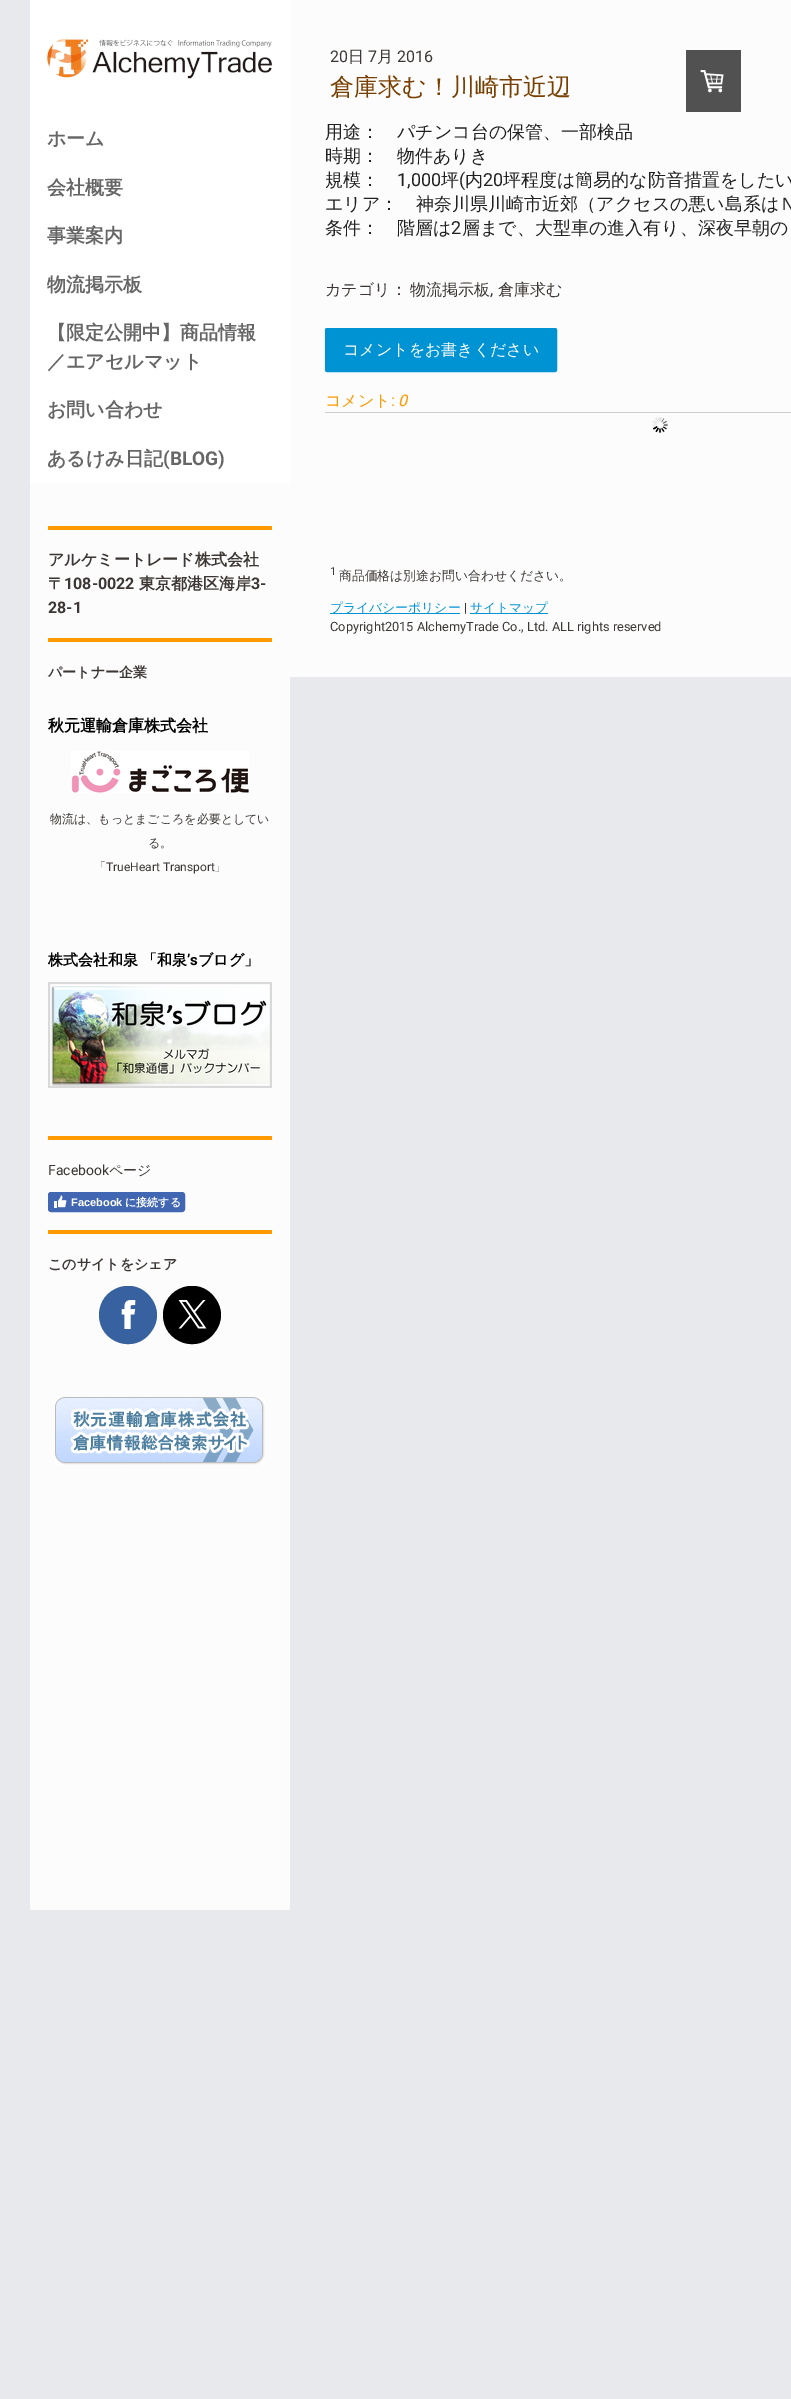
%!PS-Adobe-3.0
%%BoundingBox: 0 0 791 2399
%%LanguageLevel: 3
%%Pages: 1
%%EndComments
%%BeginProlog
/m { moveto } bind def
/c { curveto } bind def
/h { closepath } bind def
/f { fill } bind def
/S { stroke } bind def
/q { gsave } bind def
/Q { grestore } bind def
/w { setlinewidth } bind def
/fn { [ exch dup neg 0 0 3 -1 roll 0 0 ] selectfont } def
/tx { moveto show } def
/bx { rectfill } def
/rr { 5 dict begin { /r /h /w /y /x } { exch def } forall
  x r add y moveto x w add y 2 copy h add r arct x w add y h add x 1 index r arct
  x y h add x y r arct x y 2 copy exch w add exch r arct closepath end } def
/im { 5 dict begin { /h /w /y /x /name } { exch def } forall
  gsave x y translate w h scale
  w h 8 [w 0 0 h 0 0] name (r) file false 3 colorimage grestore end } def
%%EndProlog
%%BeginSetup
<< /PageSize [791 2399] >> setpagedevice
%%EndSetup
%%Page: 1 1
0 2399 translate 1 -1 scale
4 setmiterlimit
0.91 0.914 0.925 setrgbcolor
0 0 791 2399 bx
1 setgray
30 0 260 483 bx
(image0.raw) 47 38 226 41 im
/WenQuanYiZenHei-Bold 19 fn
0.4 setgray
(ホーム) 47 145 tx
(会社概要) 47 194 tx
(事業案内) 47 242 tx
(物流掲示板) 47 291 tx
(【限定公開中】商品情報) 47 339 tx
(／エアセルマット) 47 368 tx
(お問い合わせ) 47 416 tx
(あるけみ日記) 47 465 tx
/Roboto-Bold 19 fn
(\(BLOG\)) 163 465 tx
0.988 setgray
30 483 260 1427 bx
290 0 501 677 bx
0.318 setgray
686 50 55 62 1 rr f
(image1.raw) 700 70 24 23 im
1 0.6 0 setrgbcolor
48 526 224 4 bx
/WenQuanYiZenHei-Bold 16 fn
0.235 0.216 0.204 setrgbcolor
(アルケミートレード株式会社) 48 565 tx
(〒) 48 589 tx
/Roboto-Bold 16 fn
(108-0022) 64 589 tx
/WenQuanYiZenHei-Bold 16 fn
(東京都港区海岸) 139 589 tx
/Roboto-Bold 16 fn
(3-) 251 589 tx
(28-1) 48 613 tx
1 0.6 0 setrgbcolor
48 638 224 4 bx
/WenQuanYiZenHei-Bold 14 fn
0.235 0.216 0.204 setrgbcolor
(パートナー企業) 48 677 tx
/WenQuanYiZenHei-Bold 16 fn
0 setgray
(秋元運輸倉庫株式会社) 48 731 tx
(image2.raw) 71 751 178 42 im
/WenQuanYiZenHei-Medium 12 fn
0.235 0.216 0.204 setrgbcolor
(物流は、もっとまごころを必要としてい) 50 823 tx
(る。) 148 847 tx
(「) 94 871 tx
/Roboto-Regular 12 fn
(TrueHeart Transport) 106 871 tx
/WenQuanYiZenHei-Medium 12 fn
(」) 214 871 tx
/WenQuanYiZenHei-Bold 15 fn
0 setgray
(株式会社和泉) 48 965 tx
(「和泉) 142 965 tx
/Roboto-Bold 15 fn
(’s) 187 965 tx
/WenQuanYiZenHei-Bold 15 fn
(ブログ」) 198 965 tx
(image3.raw) 48 982 224 106 im
1 0.6 0 setrgbcolor
48 1136 224 4 bx
/Roboto-Regular 14 fn
0.235 0.216 0.204 setrgbcolor
(Facebook) 48 1175 tx
/WenQuanYiZenHei-Medium 14 fn
(ページ) 109 1175 tx
0.259 0.404 0.698 setrgbcolor
48.5 1192.5 136 19 2.5 rr q f Q
S
(image4.raw) 54 1195 13 13 im
/LiberationSans-Bold 11 fn
1 setgray
(Facebook) 71 1206 tx
/WenQuanYiZenHei-Bold 11 fn
(に接続する) 125 1206 tx
1 0.6 0 setrgbcolor
48 1230 224 4 bx
/WenQuanYiZenHei-Bold 14 fn
0.235 0.216 0.204 setrgbcolor
(このサイトをシェア) 48 1269 tx
q
48 1286 224 71 rectclip
0.22 0.38 0.624 setrgbcolor
99 1315 m 99 1343 135 1355 151 1332 c 155 1327 157 1321 157 1315 c 157 1309 155 1303 151 1298 c 135 1275 99 1287 99 1315 c h f
Q
(image5.raw) 121 1300 15 29 im
q
48 1286 224 71 rectclip
0 setgray
163 1315 m 163 1343 199 1355 215 1332 c 219 1327 221 1321 221 1315 c 221 1309 219 1303 215 1298 c 199 1275 163 1287 163 1315 c h f
Q
(image6.raw) 178 1300 29 29 im
(image7.raw) 55 1397 210 68 im
/Roboto-Regular 16 fn
(20) 330 62 tx
/WenQuanYiZenHei-Medium 16 fn
(日) 348 62 tx
/Roboto-Regular 16 fn
(7) 368 62 tx
/WenQuanYiZenHei-Medium 16 fn
(月) 377 62 tx
/Roboto-Regular 16 fn
(2016) 397 62 tx
/WenQuanYiZenHei-Medium 24 fn
0.475 0.247 0 setrgbcolor
(倉庫求む！川崎市近辺) 330 95 tx
/WenQuanYiZenHei-Medium 18 fn
0.129 setgray
(用途：　パチンコ台の保管、一部検品) 325 138 tx
(時期：　物件ありき) 325 162 tx
(規模：) 325 186 tx
/Roboto-Regular 18 fn
(1,000) 397 186 tx
/WenQuanYiZenHei-Medium 18 fn
(坪) 441 186 tx
/Roboto-Regular 18 fn
(\() 459 186 tx
/WenQuanYiZenHei-Medium 18 fn
(内) 465 186 tx
/Roboto-Regular 18 fn
(20) 483 186 tx
/WenQuanYiZenHei-Medium 18 fn
(坪程度は簡易的な防音措置をしたい) 503 186 tx
(エリア：　神奈川県川崎市近郊（アクセスの悪い島系はＮ) 325 210 tx
(条件：　階層は) 325 234 tx
/Roboto-Regular 18 fn
(2) 451 234 tx
/WenQuanYiZenHei-Medium 18 fn
(層まで、大型車の進入有り、深夜早朝の) 462 234 tx
/WenQuanYiZenHei-Medium 16 fn
0.235 0.216 0.204 setrgbcolor
(カテゴリ：) 325 295 tx
(物流掲示板) 410 295 tx
/Roboto-Regular 16 fn
(,) 490 295 tx
/WenQuanYiZenHei-Medium 16 fn
(倉庫求む) 498 295 tx
0 0.576 0.827 setrgbcolor
326 329 230 42 1 rr q f Q
2 w
S
1 setgray
(コメントをお書きください) 343 355 tx
1 0.6 0 setrgbcolor
(コメント) 325 406 tx
/RobotoSlab-Regular 16 fn
(:) 391 406 tx
/RobotoSlab-Italic 16 fn
(0) 398 406 tx
(image8.raw) 652 417 16 16 im
0.8 setgray
325 412 466 1 bx
/Roboto-Regular 11 fn
0.235 0.216 0.204 setrgbcolor
(1) 330 575 tx
/WenQuanYiZenHei-Medium 12.8 fn
(商品価格は別途お問い合わせください。) 339 580 tx
0 0.576 0.827 setrgbcolor
330 613 130 1 bx
(プライバシーポリシー) 330 612 tx
/Roboto-Regular 12.8 fn
0.235 0.216 0.204 setrgbcolor
(|) 464 612 tx
0 0.576 0.827 setrgbcolor
470 613 78 1 bx
/WenQuanYiZenHei-Medium 12.8 fn
(サイトマップ) 470 612 tx
/Roboto-Regular 12.8 fn
0.235 0.216 0.204 setrgbcolor
(Copyright2015 AlchemyTrade Co., Ltd. ALL rights reserved) 330 631 tx
showpage
%%EOF
